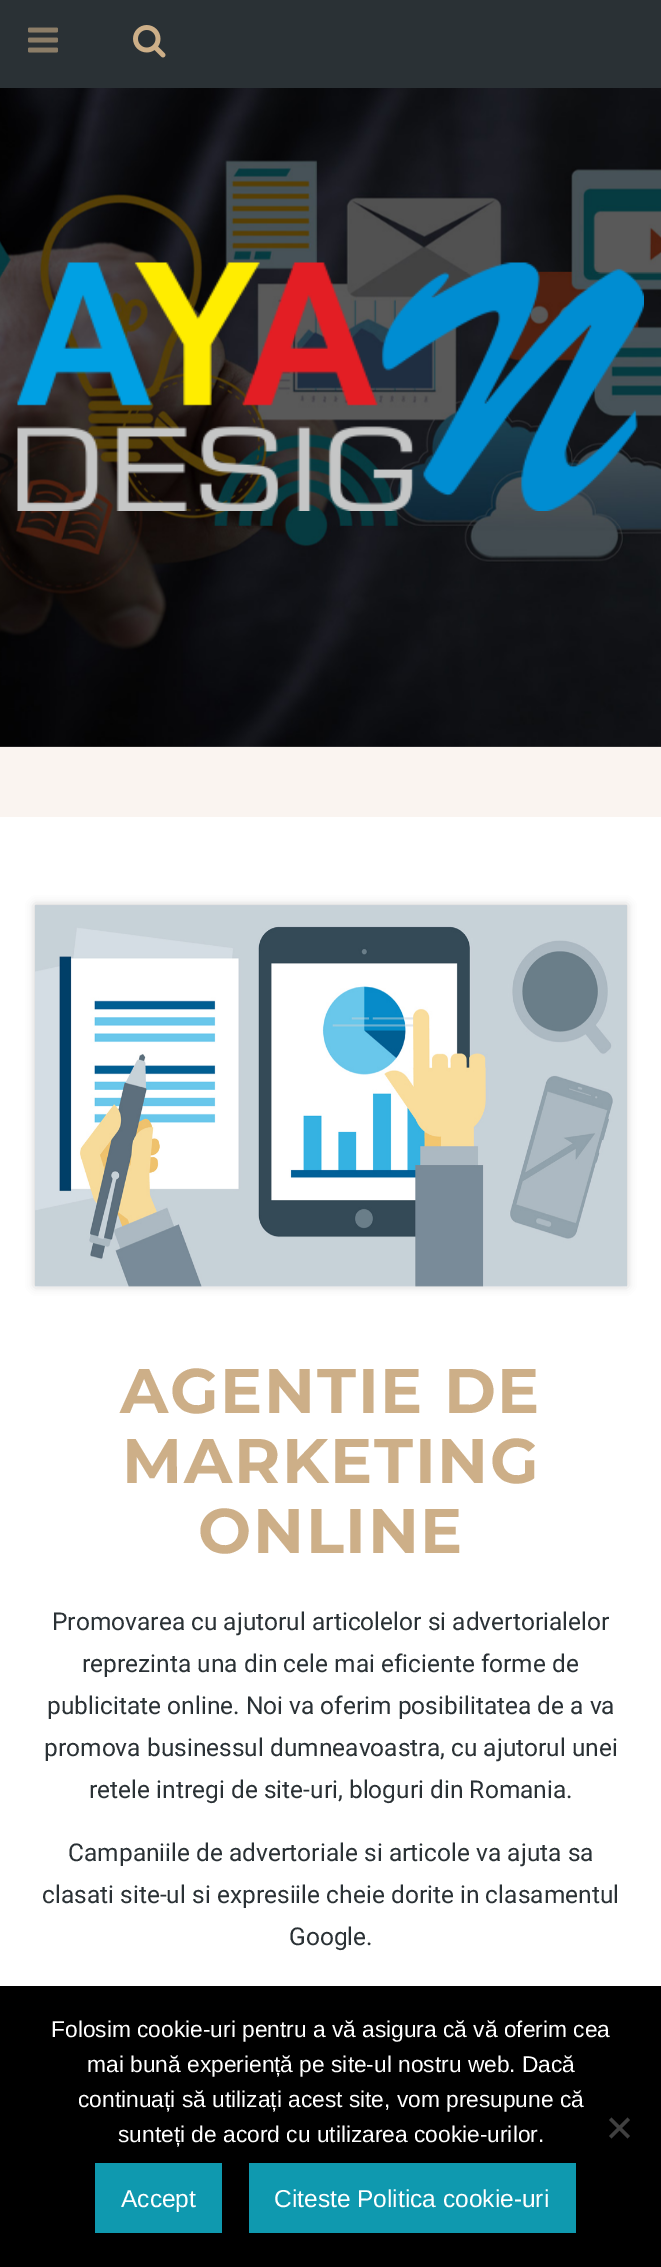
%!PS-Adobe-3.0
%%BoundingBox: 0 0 661 2267
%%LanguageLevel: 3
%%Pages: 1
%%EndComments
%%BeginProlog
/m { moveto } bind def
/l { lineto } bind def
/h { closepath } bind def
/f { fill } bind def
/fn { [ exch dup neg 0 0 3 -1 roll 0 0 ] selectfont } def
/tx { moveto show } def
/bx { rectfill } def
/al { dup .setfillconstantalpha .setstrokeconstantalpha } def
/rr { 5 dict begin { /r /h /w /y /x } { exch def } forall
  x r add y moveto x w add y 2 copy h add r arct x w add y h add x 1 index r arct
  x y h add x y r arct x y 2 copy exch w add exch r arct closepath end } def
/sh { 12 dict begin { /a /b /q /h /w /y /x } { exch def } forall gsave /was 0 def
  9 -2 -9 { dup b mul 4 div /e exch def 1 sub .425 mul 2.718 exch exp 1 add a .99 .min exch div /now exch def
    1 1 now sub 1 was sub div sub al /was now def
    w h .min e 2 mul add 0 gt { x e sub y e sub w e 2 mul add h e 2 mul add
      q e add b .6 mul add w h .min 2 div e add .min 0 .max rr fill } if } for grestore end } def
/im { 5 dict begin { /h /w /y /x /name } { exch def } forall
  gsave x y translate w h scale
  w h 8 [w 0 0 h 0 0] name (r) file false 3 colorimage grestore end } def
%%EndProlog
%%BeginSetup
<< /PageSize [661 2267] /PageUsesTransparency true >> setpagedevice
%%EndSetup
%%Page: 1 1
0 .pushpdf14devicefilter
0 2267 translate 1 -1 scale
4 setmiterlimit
0.98 0.957 0.941 setrgbcolor
0 0 661 2267 bx
0.165 0.192 0.208 setrgbcolor
0 0 661 88 bx
(image0.raw) 28 27 30 26 im
(image1.raw) 133 25 33 33 im
(image2.raw) 0 88 661 659 im
(image3.raw) 17 262 627 249 im
1 setgray
0 817 661 1169 bx
0 setgray
35 905 592 381 0 4.5 0.1 sh
35 905 592 381 0 4.5 0.1 sh
(image4.raw) 35 905 592 382 im
/Montserrat-Thin 63 fn
0.804 0.686 0.533 setrgbcolor
120 1413 m 1.75 0 (AGENTIE DE) ashow
122 1483 m 1.75 0 (MARKETING) ashow
198 1553 m 1.75 0 (ONLINE) ashow
/Roboto-Regular 24.5 fn
0.165 0.192 0.208 setrgbcolor
(Promovarea cu ajutorul articolelor si advertorialelor) 52 1630 tx
(reprezinta una din cele mai eficiente forme de) 82 1672 tx
(publicitate online. Noi va oferim posibilitatea de a va) 47 1714 tx
(promova businessul dumneavoastra, cu ajutorul unei) 44 1756 tx
(retele intregi de site-uri, bloguri din Romania.) 89 1798 tx
(Campaniile de advertoriale si articole va ajuta sa) 68 1861 tx
(clasati site-ul si expresiile cheie dorite in clasamentul) 42 1903 tx
(Google.) 289 1945 tx
0 setgray
0 1986 661 281 bx
/LiberationSans-Regular 22.75 fn
1 setgray
(Folosim cookie-uri pentru a vă asigura că vă oferim cea) 51 2037 tx
(mai bună experiență pe site-ul nostru web. Dacă) 87 2072 tx
(continuați să utilizați acest site, vom presupune că) 78 2107 tx
(sunteți de acord cu utilizarea cookie-urilor.) 118 2142 tx
0.251 setgray
627.5 2117.5 m 630 2120 l 611.5 2138.5 l 609 2136 l h f
609 2120 m 611.5 2117.5 l 630 2136 l 627.5 2138.5 l h f
0.059 0.6 0.686 setrgbcolor
95 2163 127 70 bx
/LiberationSans-Regular 24.5 fn
1 setgray
(Accept) 121 2207 tx
0.059 0.6 0.686 setrgbcolor
249 2163 327 70 bx
1 setgray
(Citeste Politica cookie-uri) 274 2207 tx
.poppdf14devicefilter showpage
%%EOF
